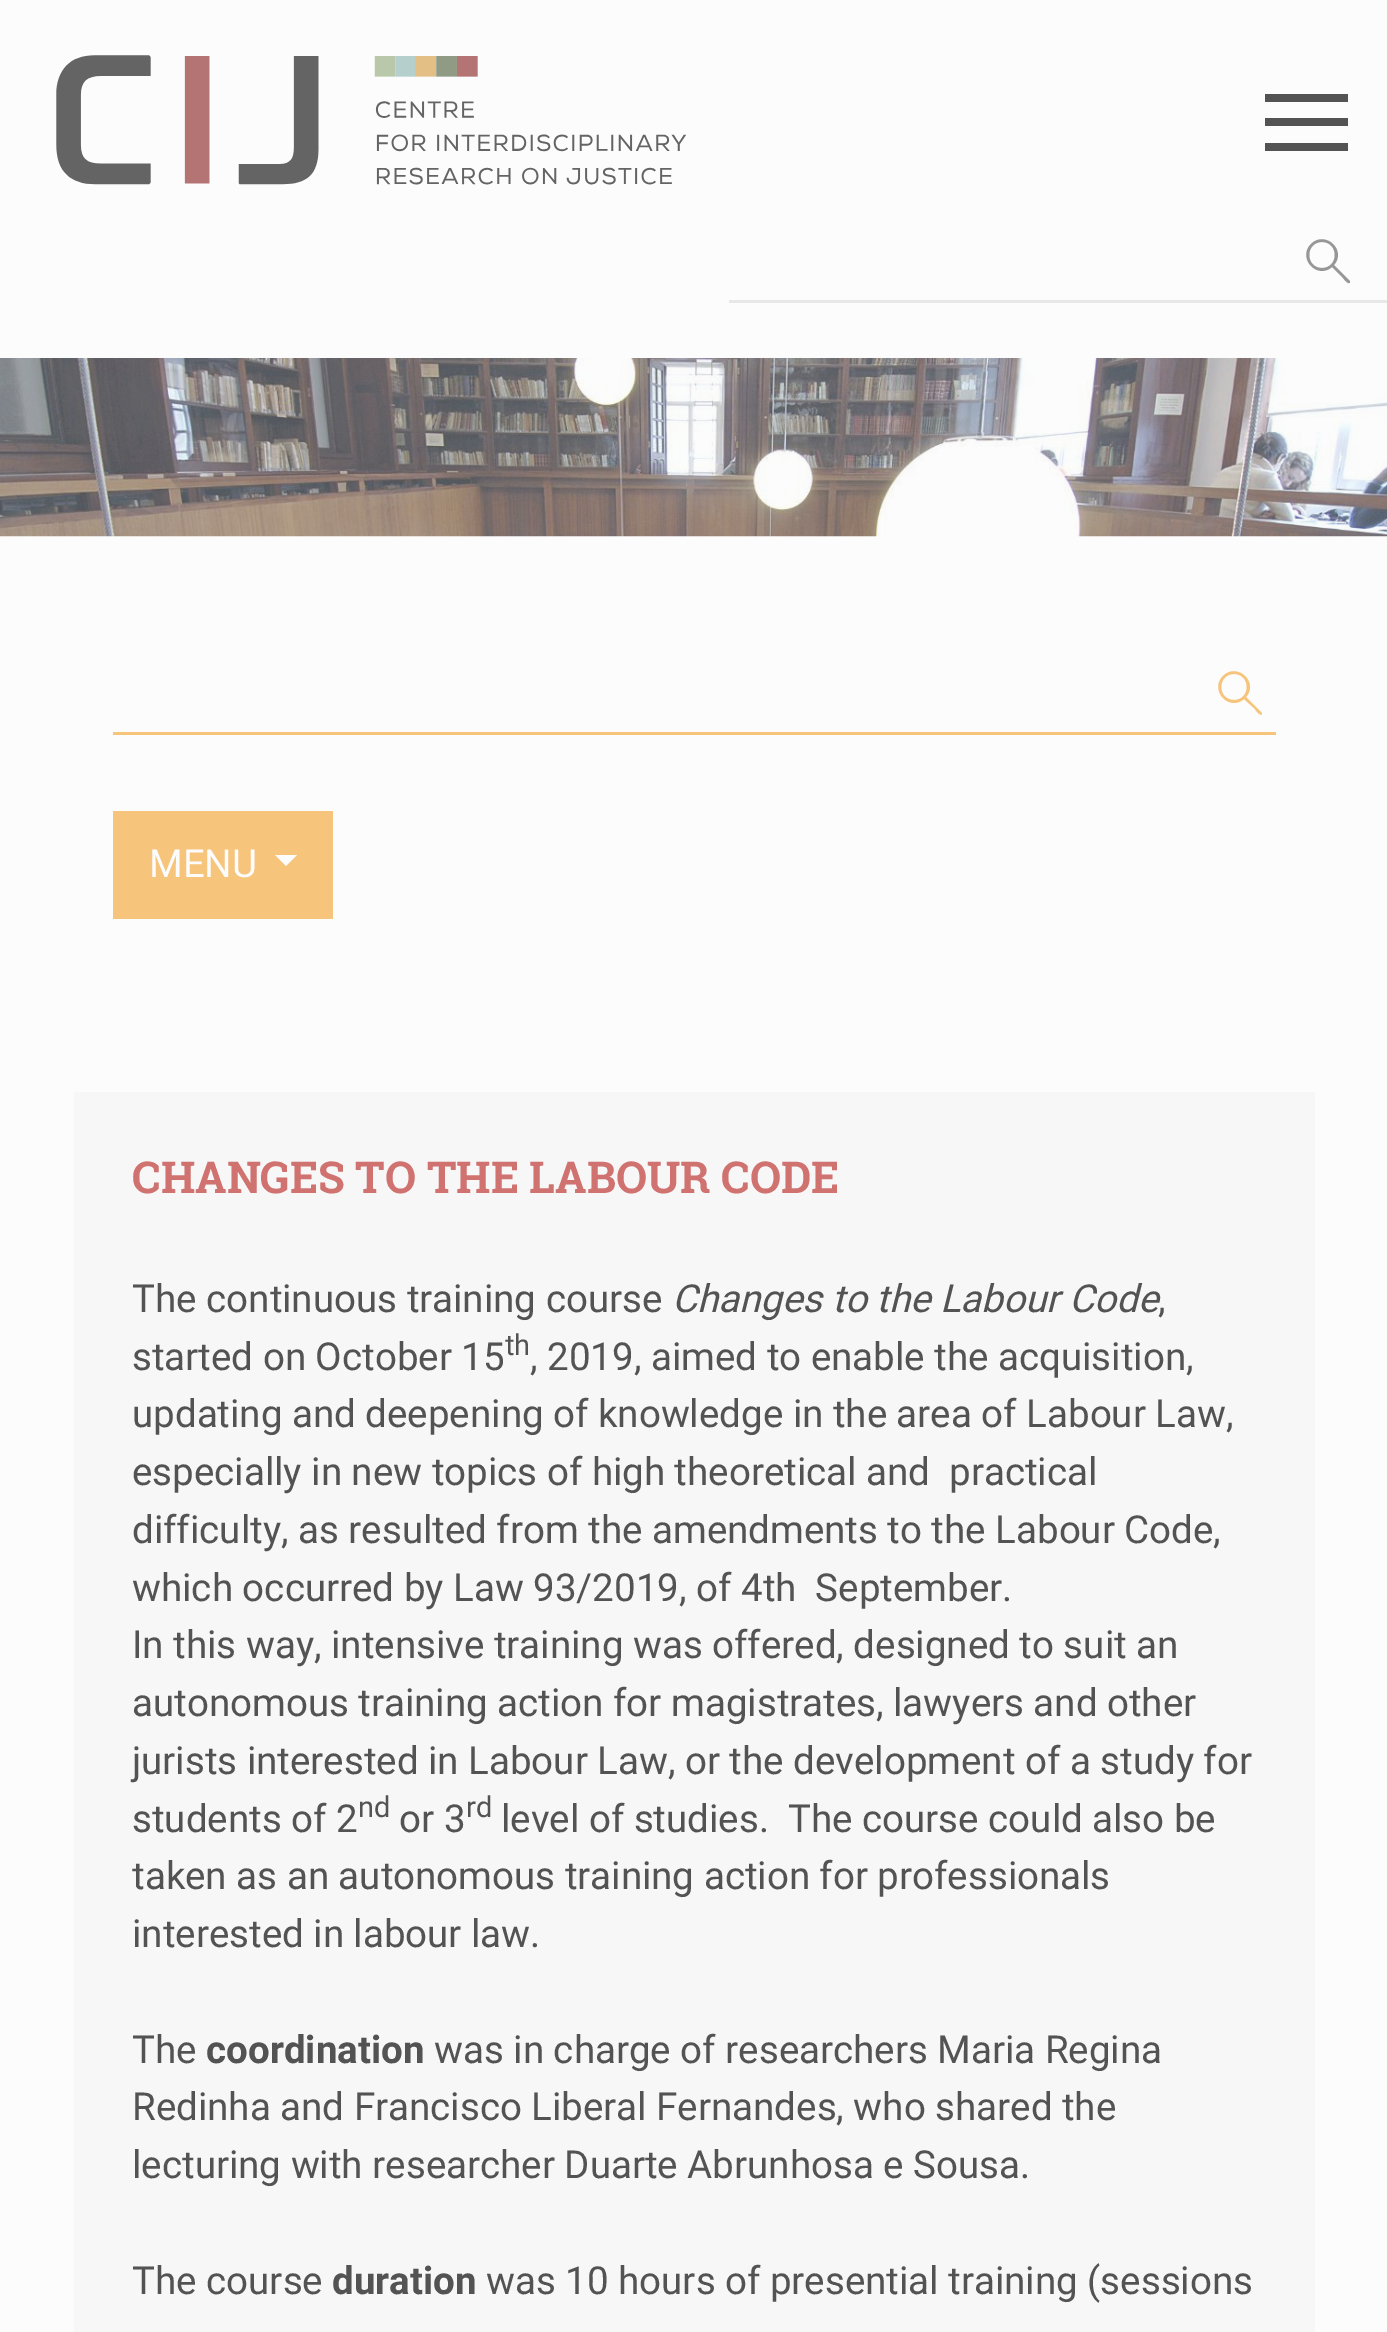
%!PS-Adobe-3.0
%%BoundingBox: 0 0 1387 2332
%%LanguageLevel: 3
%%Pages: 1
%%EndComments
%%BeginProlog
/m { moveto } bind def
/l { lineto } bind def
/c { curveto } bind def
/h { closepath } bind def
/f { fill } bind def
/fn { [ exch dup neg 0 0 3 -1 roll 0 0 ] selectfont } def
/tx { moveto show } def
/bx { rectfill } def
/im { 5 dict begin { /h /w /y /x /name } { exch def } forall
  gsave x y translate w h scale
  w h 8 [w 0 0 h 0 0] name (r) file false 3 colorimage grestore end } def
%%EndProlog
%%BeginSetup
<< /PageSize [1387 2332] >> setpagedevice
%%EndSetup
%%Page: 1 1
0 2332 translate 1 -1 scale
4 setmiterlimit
0.988 setgray
0 0 1387 2332 bx
(image0.raw) 56 55 630 130 im
0.325 setgray
1265 118 83 8 bx
1265 94 83 8 bx
1265 143 83 8 bx
0.592 setgray
1350 281 m 1334 265 l 1347 250 1325 230 1311 244 c 1297 258 1317 280 1332 267 c 1343 278 l 1343 278 1349 286 1350 282 c h 1322 268 m 1305 268 1305 242 1322 242 c 1339 242 1339 268 1322 268 c h f
0.91 setgray
729 300 658 3 bx
(image1.raw) 0 358 1387 179 im
0.965 0.769 0.478 setrgbcolor
1262 713 m 1246 697 l 1259 682 1237 662 1223 676 c 1209 690 1229 712 1244 699 c 1255 709 l 1255 710 1261 717 1262 714 c h 1234 700 m 1217 700 1217 674 1234 674 c 1251 674 1251 700 1234 700 c h f
113 732 1163 3 bx
113 811 220 108 bx
/Roboto-Regular 38.5 fn
0.988 setgray
(MENU) 149 877 tx
275 855 m 297 855 l 286 866 l h f
0.969 setgray
74 1092 1241 1240 bx
/RobotoSlab-Bold 44 fn
0.812 0.447 0.439 setrgbcolor
(CHANGES TO THE LABOUR CODE) 132 1193 tx
/Roboto-Regular 38.5 fn
0.325 setgray
(The continuous training course) 132 1312 tx
/Roboto-Italic 38.5 fn
(Changes to the Labour Code) 672 1312 tx
/Roboto-Regular 38.5 fn
(,) 1158 1312 tx
(started on October 15) 132 1370 tx
/Roboto-Regular 29 fn
(th) 505 1355 tx
/Roboto-Regular 38.5 fn
(, 2019, aimed to enable the acquisition,) 530 1370 tx
(updating and deepening of knowledge in the area of Labour Law,) 132 1427 tx
(especially in new topics of high theoretical and  practical) 132 1485 tx
(difficulty, as resulted from the amendments to the Labour Code,) 132 1543 tx
(which occurred by Law 93/2019, of 4th  September.) 132 1601 tx
(In this way, intensive training was offered, designed to suit an) 132 1658 tx
(autonomous training action for magistrates, lawyers and other) 132 1716 tx
(jurists interested in Labour Law, or the development of a study for) 132 1774 tx
(students of 2) 132 1832 tx
/Roboto-Regular 29 fn
(nd) 358 1817 tx
/Roboto-Regular 38.5 fn
(or 3) 399 1832 tx
/Roboto-Regular 29 fn
(rd) 466 1817 tx
/Roboto-Regular 38.5 fn
(level of studies.  The course could also be) 501 1832 tx
(taken as an autonomous training action for professionals) 132 1889 tx
(interested in labour law.) 132 1947 tx
(The) 132 2063 tx
/Roboto-Bold 38.5 fn
(coordination) 206 2063 tx
/Roboto-Regular 38.5 fn
(was in charge of researchers Maria Regina) 434 2063 tx
(Redinha and Francisco Liberal Fernandes, who shared the) 132 2120 tx
(lecturing with researcher Duarte Abrunhosa e Sousa.) 132 2178 tx
(The course) 132 2294 tx
/Roboto-Bold 38.5 fn
(duration) 332 2294 tx
/Roboto-Regular 38.5 fn
(was 10 hours of presential training \(sessions) 486 2294 tx
showpage
%%EOF
